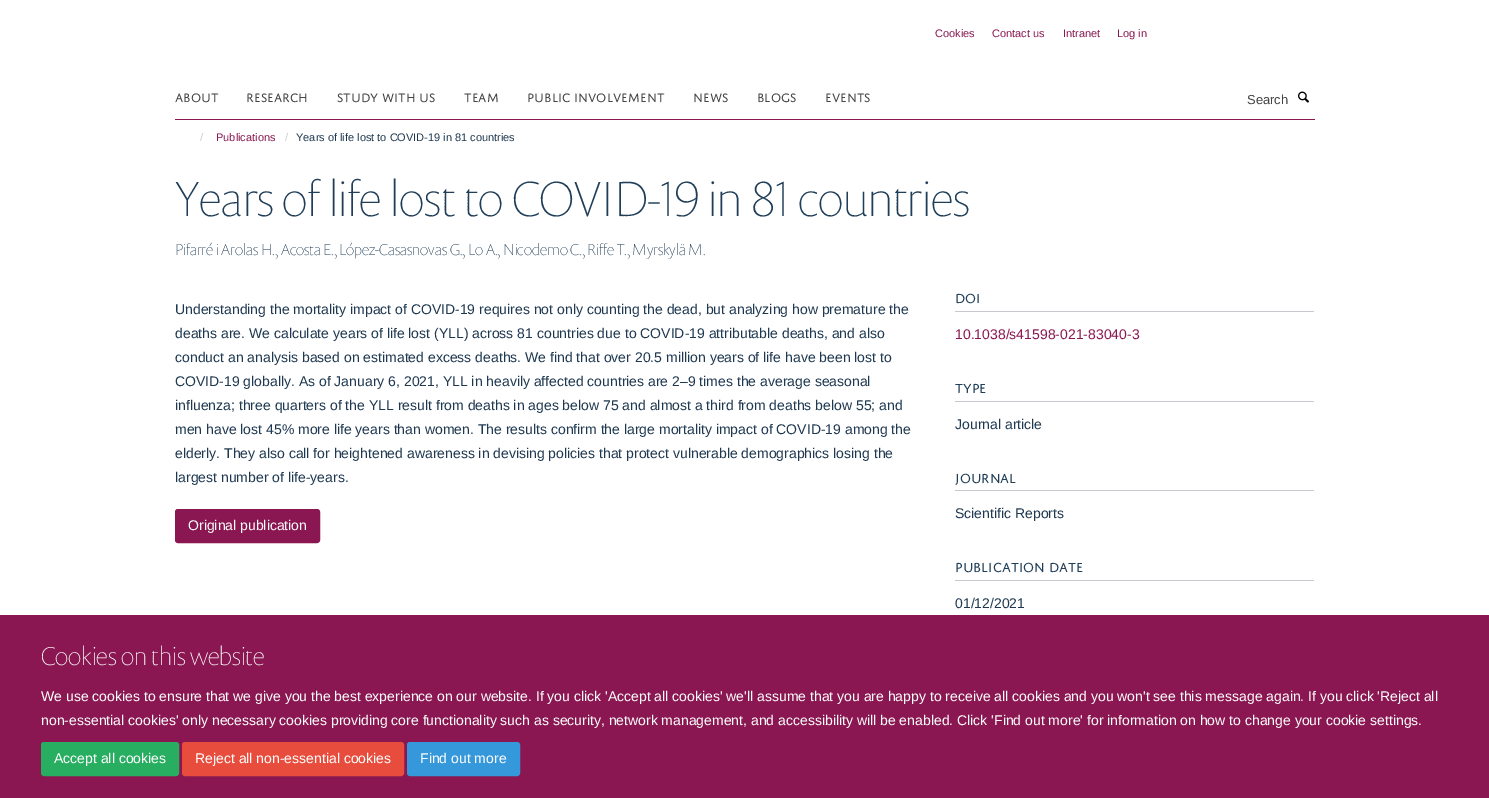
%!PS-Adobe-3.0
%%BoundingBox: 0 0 1489 798
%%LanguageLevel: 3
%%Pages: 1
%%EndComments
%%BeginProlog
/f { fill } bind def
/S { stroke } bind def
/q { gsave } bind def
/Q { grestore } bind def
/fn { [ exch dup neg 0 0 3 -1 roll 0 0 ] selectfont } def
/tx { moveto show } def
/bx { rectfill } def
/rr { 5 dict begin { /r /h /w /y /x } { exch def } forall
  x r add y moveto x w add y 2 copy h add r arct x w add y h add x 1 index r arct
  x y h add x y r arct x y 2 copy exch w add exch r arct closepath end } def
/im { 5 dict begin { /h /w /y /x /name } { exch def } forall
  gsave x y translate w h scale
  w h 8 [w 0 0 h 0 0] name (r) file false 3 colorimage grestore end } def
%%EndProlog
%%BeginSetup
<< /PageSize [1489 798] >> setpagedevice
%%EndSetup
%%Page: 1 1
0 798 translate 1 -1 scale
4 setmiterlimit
1 setgray
0 0 1489 798 bx
/LiberationSans-Regular 11 fn
0.541 0.09 0.318 setrgbcolor
(Cookies) 935 37 tx
(Contact us) 992 37 tx
(Intranet) 1063 37 tx
(Log in) 1117 37 tx
175 119 1140 1 bx
/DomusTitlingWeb-Regular 13 fn
0.267 setgray
(ABOUT) 175 102 tx
(RESEARCH) 246 102 tx
(STUDY WITH US) 337 102 tx
(TEAM) 464 102 tx
(PUBLIC INVOLVEMENT) 527 102 tx
(NEWS) 693 102 tx
(BLOGS) 757 102 tx
(EVENTS) 825 102 tx
/LiberationSans-Regular 13 fn
(Search) 1247 104 tx
(image0.raw) 1298 91 11 12 im
/LiberationSans-Regular 11 fn
0.8 setgray
(/) 200 141 tx
0.541 0.09 0.318 setrgbcolor
(Publications) 216 141 tx
0.8 setgray
(/) 285 141 tx
0.114 0.22 0.314 setrgbcolor
(Years of life lost to COVID-19 in 81 countries) 296 141 tx
/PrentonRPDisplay-Thin 50 fn
0.125 0.243 0.345 setrgbcolor
(Years of life lost to COVID-19 in 81 countries) 175 216 tx
/PrentonRPDisplay-Thin 16 fn
(Pifarré i Arolas H., Acosta E., López-Casasnovas G., Lo A., Nicodemo C., Riffe T., Myrskylä M.) 175 255 tx
/LiberationSans-Regular 14 fn
0.114 0.22 0.314 setrgbcolor
(Understanding the mortality impact of COVID-19 requires not only counting the dead, but analyzing how premature the) 175 314 tx
(deaths are. We calculate years of life lost \(YLL\) across 81 countries due to COVID-19 attributable deaths, and also) 175 338 tx
(conduct an analysis based on estimated excess deaths. We find that over 20.5 million years of life have been lost to) 175 362 tx
(COVID-19 globally. As of January 6, 2021, YLL in heavily affected countries are 2–9 times the average seasonal) 175 386 tx
(influenza; three quarters of the YLL result from deaths in ages below 75 and almost a third from deaths below 55; and) 175 410 tx
(men have lost 45% more life years than women. The results confirm the large mortality impact of COVID-19 among the) 175 434 tx
(elderly. They also call for heightened awareness in devising policies that protect vulnerable demographics losing the) 175 458 tx
(largest number of life-years.) 175 482 tx
0.541 0.09 0.318 setrgbcolor
175.5 509.5 144 33 2.5 rr q f Q
S
1 setgray
(Original publication) 188 530 tx
0.776 0.792 0.812 setrgbcolor
955 311 359 1 bx
/DomusTitlingWeb-Regular 14 fn
0.125 0.243 0.345 setrgbcolor
(DOI) 955 303 tx
/LiberationSans-Regular 14 fn
0.541 0.09 0.318 setrgbcolor
(10.1038/s41598-021-83040-3) 955 339 tx
0.776 0.792 0.812 setrgbcolor
955 401 359 1 bx
/DomusTitlingWeb-Regular 14 fn
0.125 0.243 0.345 setrgbcolor
(TYPE) 955 393 tx
/LiberationSans-Regular 14 fn
0.114 0.22 0.314 setrgbcolor
(Journal article) 955 429 tx
0.776 0.792 0.812 setrgbcolor
955 490 359 1 bx
/DomusTitlingWeb-Regular 14 fn
0.125 0.243 0.345 setrgbcolor
(JOURNAL) 955 483 tx
/LiberationSans-Regular 14 fn
0.114 0.22 0.314 setrgbcolor
(Scientific Reports) 955 518 tx
0.776 0.792 0.812 setrgbcolor
955 580 359 1 bx
/DomusTitlingWeb-Regular 14 fn
0.125 0.243 0.345 setrgbcolor
(PUBLICATION DATE) 955 572 tx
/LiberationSans-Regular 14 fn
0.114 0.22 0.314 setrgbcolor
(01/12/2021) 955 608 tx
0.541 0.09 0.318 setrgbcolor
0 615 1489 183 bx
/PrentonRPDisplay-Thin 26 fn
1 setgray
(Cookies on this website) 41 665 tx
/LiberationSans-Regular 14 fn
(We use cookies to ensure that we give you the best experience on our website. If you click 'Accept all cookies' we'll assume that you are happy to receive all cookies and you won't see this message again. If you click 'Reject all) 41 701 tx
(non-essential cookies' only necessary cookies providing core functionality such as security, network management, and accessibility will be enabled. Click 'Find out more' for information on how to change your cookie settings.) 41 725 tx
0.153 0.682 0.376 setrgbcolor
41.5 742.5 137 33 2.5 rr q f Q
S
1 setgray
(Accept all cookies) 54 763 tx
0.906 0.298 0.235 setrgbcolor
182.5 742.5 221 33 2.5 rr q f Q
S
1 setgray
(Reject all non-essential cookies) 195 763 tx
0.204 0.596 0.859 setrgbcolor
407.5 742.5 112 33 2.5 rr q f Q
S
1 setgray
(Find out more) 420 763 tx
showpage
%%EOF
